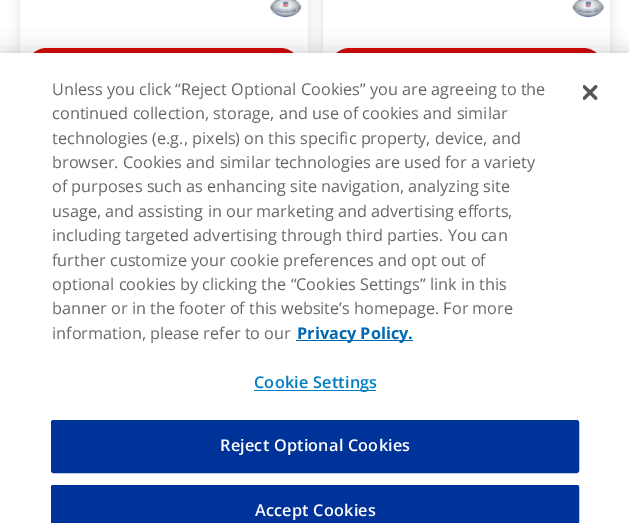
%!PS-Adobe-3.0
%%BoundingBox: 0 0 629 523
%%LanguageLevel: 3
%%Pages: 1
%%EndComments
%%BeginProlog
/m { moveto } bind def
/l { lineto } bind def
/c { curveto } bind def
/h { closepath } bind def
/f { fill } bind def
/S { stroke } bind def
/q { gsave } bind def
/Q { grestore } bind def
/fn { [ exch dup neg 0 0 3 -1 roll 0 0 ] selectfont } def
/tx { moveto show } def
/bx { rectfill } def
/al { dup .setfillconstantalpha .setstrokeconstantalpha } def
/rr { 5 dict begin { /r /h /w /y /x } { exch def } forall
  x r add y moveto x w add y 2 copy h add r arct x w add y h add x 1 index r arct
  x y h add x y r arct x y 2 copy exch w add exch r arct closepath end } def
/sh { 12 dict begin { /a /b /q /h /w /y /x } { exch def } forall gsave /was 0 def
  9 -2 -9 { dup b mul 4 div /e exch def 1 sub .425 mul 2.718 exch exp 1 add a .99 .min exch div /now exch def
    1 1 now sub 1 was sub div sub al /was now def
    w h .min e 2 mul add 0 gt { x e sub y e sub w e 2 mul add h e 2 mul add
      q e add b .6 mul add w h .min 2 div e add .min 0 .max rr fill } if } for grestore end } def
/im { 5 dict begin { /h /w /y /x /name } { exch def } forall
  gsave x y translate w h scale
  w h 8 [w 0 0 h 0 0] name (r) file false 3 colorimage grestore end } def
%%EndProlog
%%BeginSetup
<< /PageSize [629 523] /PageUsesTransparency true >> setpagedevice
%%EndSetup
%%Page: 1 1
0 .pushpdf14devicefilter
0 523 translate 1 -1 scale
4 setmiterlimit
1 setgray
0 0 629 523 bx
q
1 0 m 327 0 l 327 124 l 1 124 l h 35 -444 m 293 -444 l 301.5 -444 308 -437.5 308 -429 c 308 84 l 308 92.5 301.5 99 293 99 c 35 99 l 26.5 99 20 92.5 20 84 c 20 -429 l 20 -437.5 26.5 -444 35 -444 c h eoclip newpath
0.212 0.204 0.212 setrgbcolor
20 -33 288 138 15 6 0.15 sh
Q
(image0.raw) 269 0 33 18 im
0.835 0.039 0.039 setrgbcolor
26 48 275 42 21 rr f
q
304 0 m 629 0 l 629 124 l 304 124 l h 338 -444 m 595 -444 l 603.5 -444 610 -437.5 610 -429 c 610 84 l 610 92.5 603.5 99 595 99 c 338 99 l 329.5 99 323 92.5 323 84 c 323 -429 l 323 -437.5 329.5 -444 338 -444 c h eoclip newpath
0.212 0.204 0.212 setrgbcolor
323 -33 287 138 15 6 0.15 sh
Q
(image1.raw) 572 0 32 18 im
329 48 275 42 21 rr f
0 setgray
0 53 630 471 0 11 0.2 sh
1 setgray
0 53 629 470 bx
/OpenSans-Regular 16.25 fn
0.4 setgray
(Unless you click “Reject Optional Cookies” you are agreeing to the) 52 95 tx
(continued collection, storage, and use of cookies and similar) 52 119 tx
(technologies \(e.g., pixels\) on this specific property, device, and) 52 144 tx
(browser. Cookies and similar technologies are used for a variety) 52 168 tx
(of purposes such as enhancing site navigation, analyzing site) 52 192 tx
(usage, and assisting in our marketing and advertising efforts,) 52 217 tx
(including targeted advertising through third parties. You can) 52 241 tx
(further customize your cookie preferences and opt out of) 52 266 tx
(optional cookies by clicking the “Cookies Settings” link in this) 52 290 tx
(banner or in the footer of this website’s homepage. For more) 52 314 tx
(information, please refer to our) 52 339 tx
0 0.404 0.694 setrgbcolor
296 340 117 1 bx
/OpenSans-Bold 16.25 fn
(Privacy Policy.) 297 339 tx
0 0.49 0.765 setrgbcolor
254 390 122 1 bx
/OpenSans-SemiBold 16.25 fn
254 388 m 0.2 0 (Cookie Settings) ashow
0 0.2 0.6 setrgbcolor
51.5 420.5 527 52 2 rr q f Q
S
1 setgray
220 451 m 0.2 0 (Reject Optional Cookies) ashow
0 0.2 0.6 setrgbcolor
53.5 485 m 576.5 485 l 578 485 579 486 579 487.5 c 579 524 l 51 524 l 51 487.5 l 51 486 52 485 53.5 485 c h f
51.5 485.5 527 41 2 rr S
1 setgray
255 516 m 0.2 0 (Accept Cookies) ashow
(image2.raw) 583 85 15 15 im
.poppdf14devicefilter showpage
%%EOF
